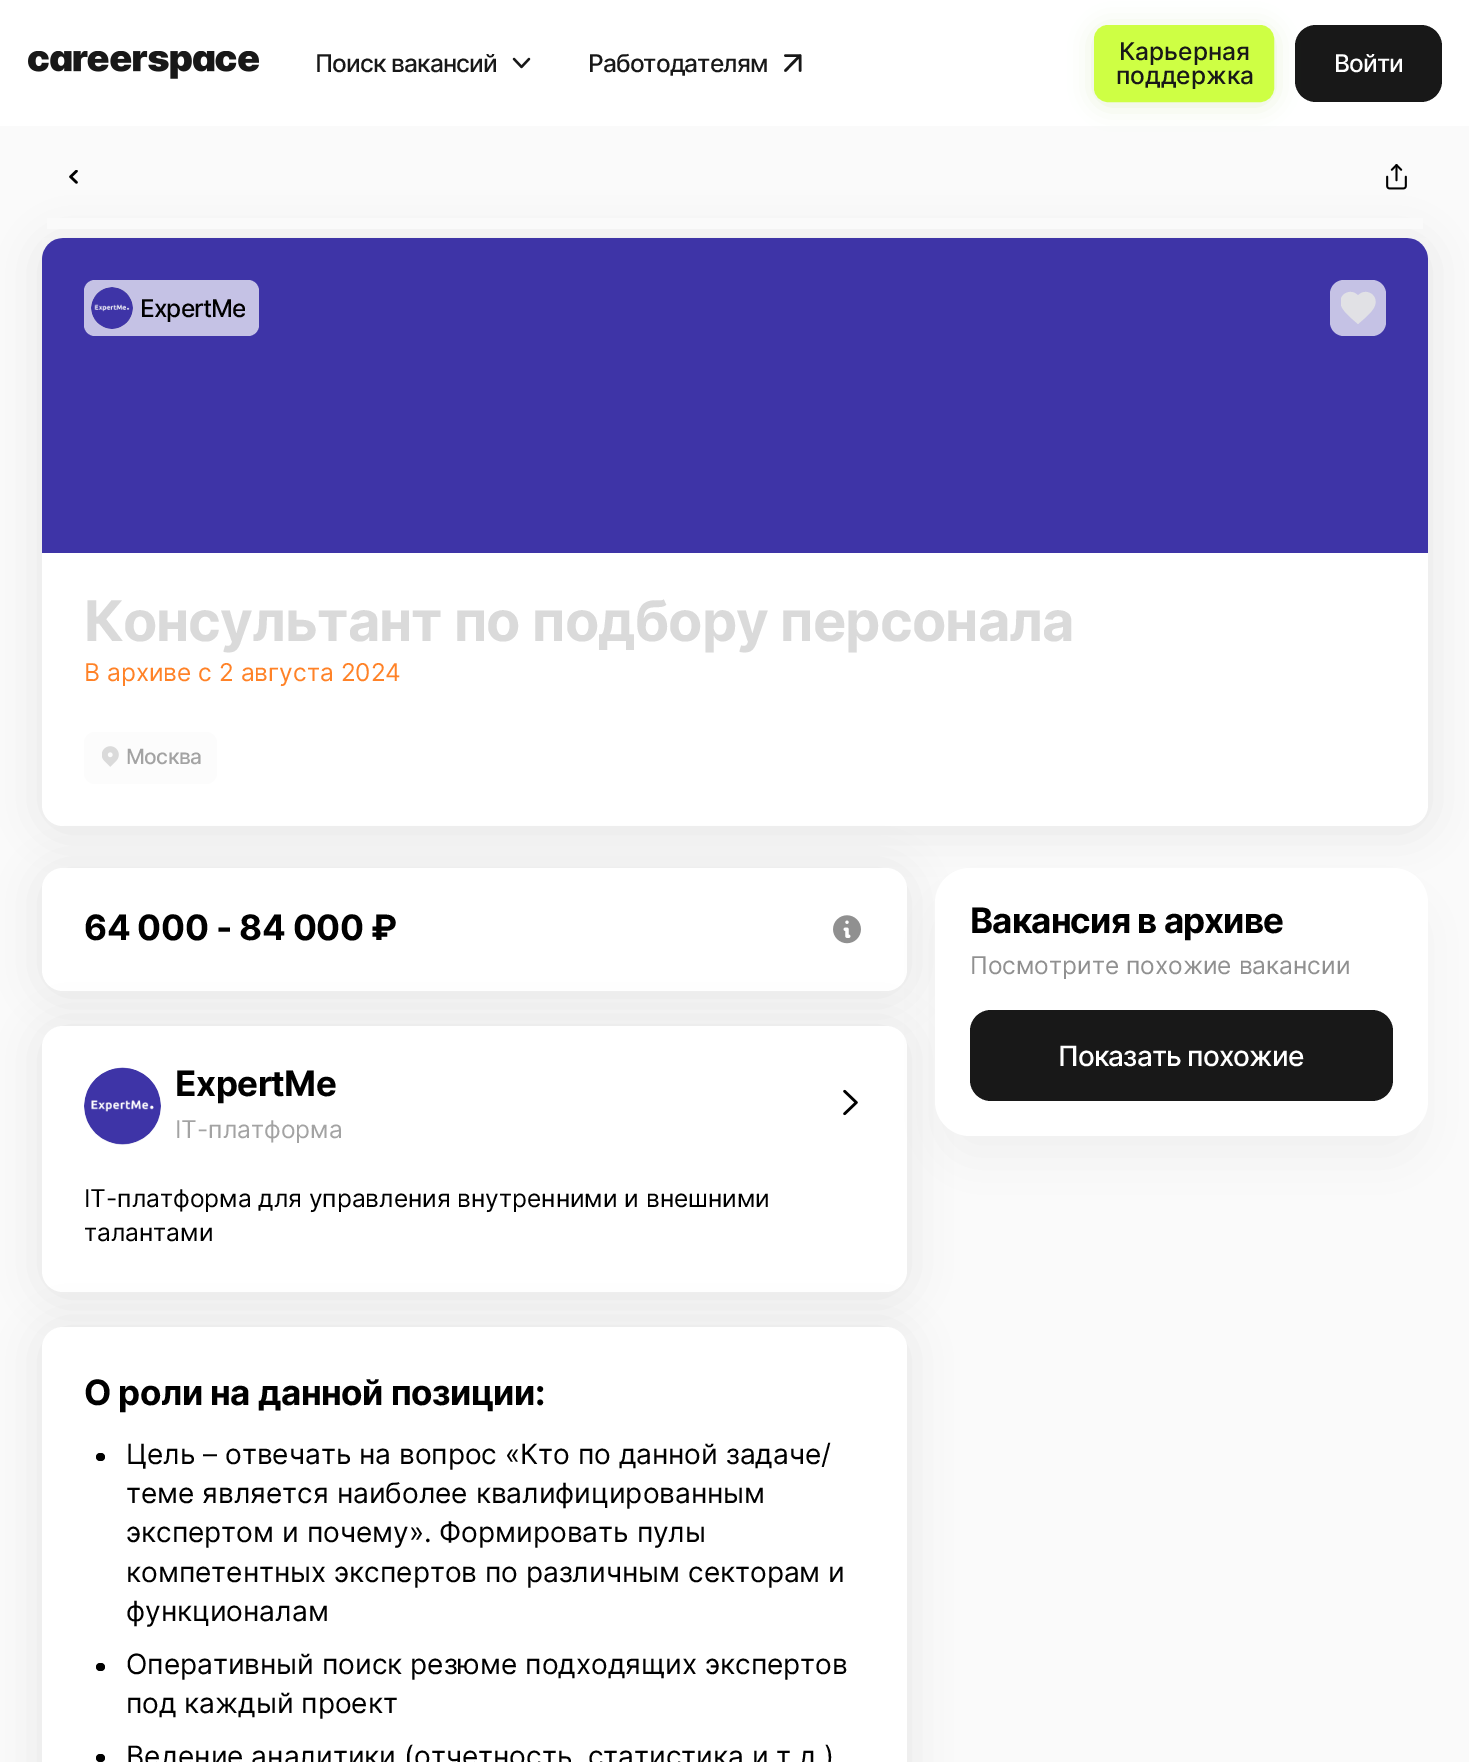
%!PS-Adobe-3.0
%%BoundingBox: 0 0 1469 1762
%%LanguageLevel: 3
%%Pages: 1
%%EndComments
%%BeginProlog
/m { moveto } bind def
/l { lineto } bind def
/c { curveto } bind def
/h { closepath } bind def
/f { fill } bind def
/S { stroke } bind def
/q { gsave } bind def
/Q { grestore } bind def
/w { setlinewidth } bind def
/fn { [ exch dup neg 0 0 3 -1 roll 0 0 ] selectfont } def
/tx { moveto show } def
/bx { rectfill } def
/al { dup .setfillconstantalpha .setstrokeconstantalpha } def
/ci { newpath 0 360 arc closepath } def
/rr { 5 dict begin { /r /h /w /y /x } { exch def } forall
  x r add y moveto x w add y 2 copy h add r arct x w add y h add x 1 index r arct
  x y h add x y r arct x y 2 copy exch w add exch r arct closepath end } def
/sh { 12 dict begin { /a /b /q /h /w /y /x } { exch def } forall gsave /was 0 def
  9 -2 -9 { dup b mul 4 div /e exch def 1 sub .425 mul 2.718 exch exp 1 add a .99 .min exch div /now exch def
    1 1 now sub 1 was sub div sub al /was now def
    w h .min e 2 mul add 0 gt { x e sub y e sub w e 2 mul add h e 2 mul add
      q e add b .6 mul add w h .min 2 div e add .min 0 .max rr fill } if } for grestore end } def
/im { 5 dict begin { /h /w /y /x /name } { exch def } forall
  gsave x y translate w h scale
  w h 8 [w 0 0 h 0 0] name (r) file false 3 colorimage grestore end } def
%%EndProlog
%%BeginSetup
<< /PageSize [1469 1762] /PageUsesTransparency true >> setpagedevice
%%EndSetup
%%Page: 1 1
0 .pushpdf14devicefilter
0 1762 translate 1 -1 scale
4 setmiterlimit
0.98 setgray
0 0 1469 1762 bx
1 setgray
0 0 1469 126 bx
(image0.raw) 28 51 231 28 im
/Inter-Medium 24.5 fn
0.094 setgray
315 72 m -0.9 0 (Поиск вакансий) ashow
(image1.raw) 512 57 19 12 im
588 72 m -0.9 0 (Работодателям) ashow
2.6 w
1 setlinecap
1 setlinejoin
785.5 70.5 m 800 55.5 l 785.5 55.5 m 800 55.5 l 800 70.5 l S
1295 25 147 77 21 rr f
0.451 0.612 0 setrgbcolor
1094 28 180 77 14 12 0.16 sh
0.808 1 0.267 setrgbcolor
1095 26 178 75 13 rr q f Q
2 w
0 setlinecap
0 setlinejoin
S
0.094 setgray
(Карьерная) 1119 60 tx
(поддержка) 1116 84 tx
1 setgray
1334 72 m -0.9 0 (Войти) ashow
0 setgray
42 242 1386 588 21 21 0.08 sh
0.98 setgray
47 218 1376 11 bx
(image2.raw) 69 170 9 14 im
(image3.raw) 1386 164 21 26 im
1 setgray
42 238 1386 588 21 rr f
0.949 setgray
63 238 m 1407 238 l 1418.5 238 1428 247.5 1428 259 c 1428 553 l 42 553 l 42 259 l 42 247.5 51.5 238 63 238 c h f
(image4.raw) 42 238 1386 315 im
0.773 0.761 0.898 setrgbcolor
84 280 175 56 11 rr f
0.882 setgray
112 308 21 ci f
(image5.raw) 91 287 42 42 im
q
140 291 105 35 rectclip
0 setgray
140 317 m -0.9 0 (ExpertMe) ashow
Q
0.7 al
1 setgray
1330 280 56 56 14 rr f
q
1341 291 35 35 rectclip
1 al
0.882 0.882 0.898 setrgbcolor
1358 324 m 1352.5 319 1344.5 313 1341.5 306.5 c 1336.5 295 1350.5 287 1358 295.5 c 1365.5 287 1379.5 295 1374.5 306.5 c 1371.5 313 1363.5 319 1358 324 c h f
Q
/Inter-Bold 56 fn
1 al
0.855 setgray
84 641 m -0.9 0 (Консультант по подбору персонала) ashow
/Inter-Regular 24.5 fn
1 0.51 0.153 setrgbcolor
(В архиве c 2 августа 2024) 84 681 tx
0.988 setgray
84 732 133 52 11 rr f
(image6.raw) 102 746 17 21 im
/Inter-Medium 21 fn
0.639 setgray
126 764 m -0.5 0 (Москва) ashow
0 setgray
42 872 865 122 21 21 0.08 sh
1 setgray
42 868 865 123 21 rr f
/Inter-Bold 35 fn
0 setgray
84 940 m -0.5 0 (64 000 - 84 000 ₽) ashow
(image7.raw) 833 915 28 29 im
42 1029 865 266 21 21 0.08 sh
1 setgray
42 1026 865 266 21 rr f
0.949 0.953 0.961 setrgbcolor
122.5 1106.5 38.5 ci f
(image8.raw) 84 1067 77 78 im
0 setgray
175 1096 m -0.5 0 (ExpertMe) ashow
/Inter-Regular 24.5 fn
0.639 setgray
(IT-платформа) 175 1138 tx
(image9.raw) 843 1089 15 27 im
0 setgray
(IT-платформа для управления внутренними и внешними) 84 1207 tx
(талантами) 84 1241 tx
42 1330 865 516 21 21 0.08 sh
1 setgray
42 1327 865 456 21 rr f
/Inter-Bold 35 fn
0 setgray
84 1405 m -0.5 0 (О роли на данной позиции:) ashow
96 1453 9 8 4 rr f
/Inter-Regular 28 fn
(Цель – отвечать на вопрос «Кто по данной задаче/) 126 1464 tx
(теме является наиболее квалифицированным) 126 1503 tx
(экспертом и почему». Формировать пулы) 126 1542 tx
(компетентных экспертов по различным секторам и) 126 1582 tx
(функционалам) 126 1621 tx
96 1663 9 8 4 rr f
(Оперативный поиск резюме подходящих экспертов) 126 1674 tx
(под каждый проект) 126 1713 tx
96 1754 9 8 4 rr f
(Ведение аналитики \(отчетность, статистика и т.д.\)) 126 1766 tx
935 896 493 268 35 24.5 0.04 sh
1 setgray
935 868 493 268 35 rr f
/Inter-Bold 35 fn
0 setgray
970 933 m -0.9 0 (Вакансия в архиве) ashow
/Inter-Regular 24.5 fn
0.565 setgray
(Посмотрите похожие вакансии) 970 974 tx
0.094 setgray
970 1010 423 91 21 rr f
/Inter-Medium 28 fn
1 setgray
1058 1066 m -0.9 0 (Показать похожие) ashow
.poppdf14devicefilter showpage
%%EOF
